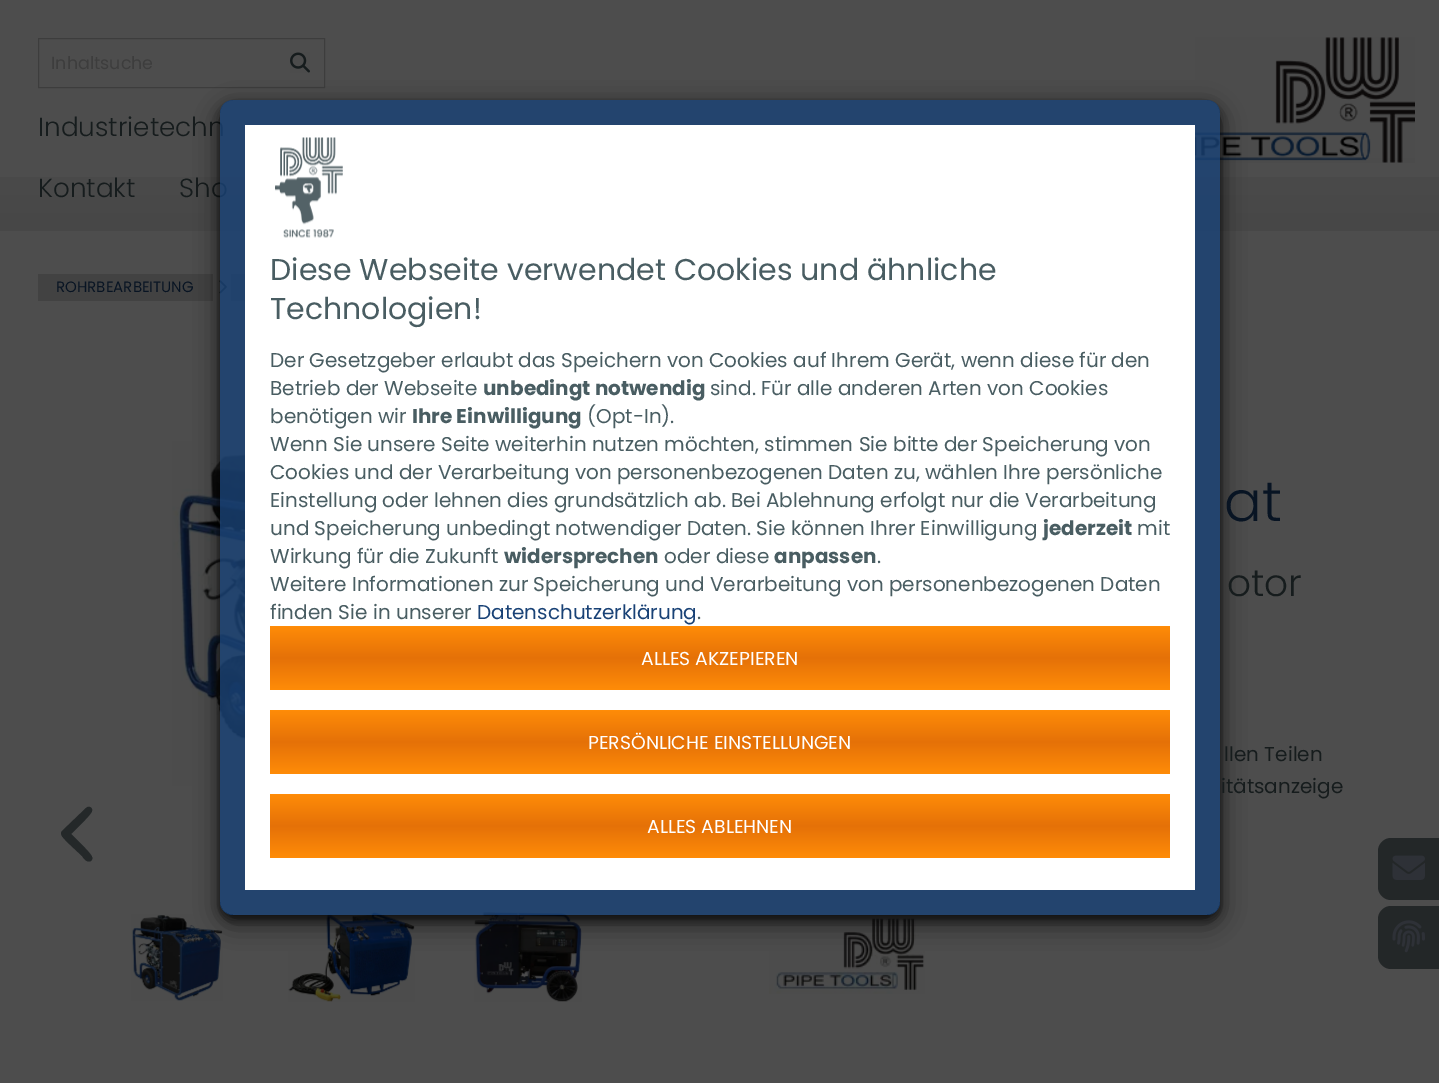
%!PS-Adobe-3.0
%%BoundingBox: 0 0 1439 1083
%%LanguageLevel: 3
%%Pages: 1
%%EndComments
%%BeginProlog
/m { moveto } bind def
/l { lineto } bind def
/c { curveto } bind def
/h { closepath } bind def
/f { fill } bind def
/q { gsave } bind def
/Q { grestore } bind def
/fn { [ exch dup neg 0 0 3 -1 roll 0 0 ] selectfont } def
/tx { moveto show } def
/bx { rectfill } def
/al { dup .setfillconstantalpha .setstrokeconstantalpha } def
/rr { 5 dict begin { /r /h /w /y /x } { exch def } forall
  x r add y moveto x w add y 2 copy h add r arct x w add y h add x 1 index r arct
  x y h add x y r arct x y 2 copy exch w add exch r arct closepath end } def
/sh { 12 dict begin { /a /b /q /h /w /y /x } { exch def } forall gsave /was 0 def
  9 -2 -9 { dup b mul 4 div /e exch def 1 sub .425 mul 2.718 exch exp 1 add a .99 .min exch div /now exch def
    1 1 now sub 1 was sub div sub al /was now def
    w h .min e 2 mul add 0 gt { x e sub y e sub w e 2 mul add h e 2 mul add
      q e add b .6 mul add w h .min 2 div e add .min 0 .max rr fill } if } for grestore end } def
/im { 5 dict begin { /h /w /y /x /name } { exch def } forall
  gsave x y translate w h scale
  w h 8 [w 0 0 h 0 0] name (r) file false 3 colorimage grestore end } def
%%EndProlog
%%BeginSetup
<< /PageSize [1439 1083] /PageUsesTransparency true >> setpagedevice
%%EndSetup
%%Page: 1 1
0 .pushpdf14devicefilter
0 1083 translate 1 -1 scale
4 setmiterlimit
0.302 setgray
0 0 1439 1083 bx
q 0 177 m 1439 177 l 1439 231 l 0 231 l h clip newpath
<< /ShadingType 2 /ColorSpace /DeviceRGB /Coords [720 0 720 231] /Extend [true true] /Function << /FunctionType 3 /Domain [0 1] /Functions [<< /FunctionType 2 /Domain [0 1] /C0 [0.302 0.302 0.302] /C1 [0.302 0.302 0.302] /N 1 >> << /FunctionType 2 /Domain [0 1] /C0 [0.302 0.302 0.302] /C1 [0.278 0.278 0.278] /N 1 >>] /Bounds [0.6] /Encode [0 1 0 1] >> >> shfill Q
0.239 setgray
38.5 38.5 286 49 rectstroke
/Poppins-Regular 17.5 fn
(Inhaltsuche) 51 69 tx
(image0.raw) 290 52 20 21 im
/Poppins-Light 26.25 fn
0.086 0.11 0.114 setrgbcolor
(Industrietechn) 38 136 tx
(Kontakt) 38 197 tx
(Sho) 179 197 tx
(image1.raw) 1195 37 220 126 im
0.259 setgray
38 274 175 27 bx
/Poppins-Regular 15 fn
0.031 0.078 0.137 setrgbcolor
(ROHRBEARBEITUNG) 56 292 tx
(image2.raw) 219 280 8 14 im
0.259 setgray
231 274 14 27 bx
(image4.raw) 172 441 73 345 im
(image5.raw) 131 914 92 87 im
(image6.raw) 288 911 127 91 im
(image7.raw) 474 911 108 91 im
(image8.raw) 769 918 156 76 im
q
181 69 m 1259 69 l 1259 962 l 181 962 l h 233 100 m 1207 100 l 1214 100 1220 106 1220 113 c 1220 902 l 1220 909 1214 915 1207 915 c 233 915 l 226 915 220 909 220 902 c 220 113 l 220 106 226 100 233 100 c h eoclip newpath
0 setgray
220 108 1000 815 13 12.5 0.6 sh
Q
q
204 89 m 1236 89 l 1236 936 l 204 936 l h 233 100 m 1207 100 l 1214 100 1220 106 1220 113 c 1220 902 l 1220 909 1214 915 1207 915 c 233 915 l 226 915 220 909 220 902 c 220 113 l 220 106 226 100 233 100 c h eoclip newpath
0 setgray
220 105 1000 815 13 5 0.6 sh
Q
0.8 al
0.098 0.259 0.463 setrgbcolor
220 100 1000 815 13 rr f
1 al
1 setgray
245 125 950 765 bx
(image3.raw) 275 137 68 101 im
/Poppins-Regular 30 fn
0.286 0.365 0.384 setrgbcolor
(Diese Webseite verwendet Cookies und ähnliche) 270 280 tx
(Technologien!) 270 319 tx
/Poppins-Regular 20 fn
(Der Gesetzgeber erlaubt das Speichern von Cookies auf Ihrem Gerät, wenn diese für den) 270 367 tx
(Betrieb der Webseite) 270 395 tx
/Poppins-Bold 20 fn
(unbedingt notwendig) 483 395 tx
/Poppins-Regular 20 fn
(sind. Für alle anderen Arten von Cookies) 710 395 tx
(benötigen wir) 270 423 tx
/Poppins-Bold 20 fn
(Ihre Einwilligung) 412 423 tx
/Poppins-Regular 20 fn
(\(Opt-In\).) 587 423 tx
(Wenn Sie unsere Seite weiterhin nutzen möchten, stimmen Sie bitte der Speicherung von) 270 451 tx
(Cookies und der Verarbeitung von personenbezogenen Daten zu, wählen Ihre persönliche) 270 479 tx
(Einstellung oder lehnen dies grundsätzlich ab. Bei Ablehnung erfolgt nur die Verarbeitung) 270 507 tx
(und Speicherung unbedingt notwendiger Daten. Sie können Ihrer Einwilligung) 270 535 tx
/Poppins-Bold 20 fn
(jederzeit) 1043 535 tx
/Poppins-Regular 20 fn
(mit) 1137 535 tx
(Wirkung für die Zukunft) 270 563 tx
/Poppins-Bold 20 fn
(widersprechen) 504 563 tx
/Poppins-Regular 20 fn
(oder diese) 664 563 tx
/Poppins-Bold 20 fn
(anpassen) 774 563 tx
/Poppins-Regular 20 fn
(.) 877 563 tx
(Weitere Informationen zur Speicherung und Verarbeitung von personenbezogenen Daten) 270 591 tx
(finden Sie in unserer) 270 619 tx
0.098 0.259 0.463 setrgbcolor
(Datenschutzerklärung) 477 619 tx
0.286 0.365 0.384 setrgbcolor
(.) 697 619 tx
q 270 626 m 1170 626 l 1170 690 l 270 690 l h clip newpath
<< /ShadingType 2 /ColorSpace /DeviceRGB /Coords [720 690 720 626] /Extend [true true] /Function << /FunctionType 3 /Domain [0 1] /Functions [<< /FunctionType 2 /Domain [0 1] /C0 [1 0.549 0.027] /C1 [0.898 0.443 0.027] /N 1 >> << /FunctionType 2 /Domain [0 1] /C0 [0.898 0.443 0.027] /C1 [1 0.549 0.027] /N 1 >>] /Bounds [0.5] /Encode [0 1 0 1] >> >> shfill Q
/Poppins-Regular 18.75 fn
1 setgray
(ALLES AKZEPIEREN) 641 665 tx
q 270 710 m 1170 710 l 1170 774 l 270 774 l h clip newpath
<< /ShadingType 2 /ColorSpace /DeviceRGB /Coords [720 774 720 710] /Extend [true true] /Function << /FunctionType 3 /Domain [0 1] /Functions [<< /FunctionType 2 /Domain [0 1] /C0 [1 0.549 0.027] /C1 [0.898 0.443 0.027] /N 1 >> << /FunctionType 2 /Domain [0 1] /C0 [0.898 0.443 0.027] /C1 [1 0.549 0.027] /N 1 >>] /Bounds [0.5] /Encode [0 1 0 1] >> >> shfill Q
(PERSÖNLICHE EINSTELLUNGEN) 588 749 tx
q 270 794 m 1170 794 l 1170 858 l 270 858 l h clip newpath
<< /ShadingType 2 /ColorSpace /DeviceRGB /Coords [720 858 720 794] /Extend [true true] /Function << /FunctionType 3 /Domain [0 1] /Functions [<< /FunctionType 2 /Domain [0 1] /C0 [1 0.549 0.027] /C1 [0.898 0.443 0.027] /N 1 >> << /FunctionType 2 /Domain [0 1] /C0 [0.898 0.443 0.027] /C1 [1 0.549 0.027] /N 1 >>] /Bounds [0.5] /Encode [0 1 0 1] >> >> shfill Q
(ALLES ABLEHNEN) 647 833 tx
0.141 0.157 0.161 setrgbcolor
62 831 m 59 835 64 838 66 841 c 82 856 l 84 859 87 863 91 861 c 92 860 93 858 92 857 c 92 854 74 837 71 834 c 74 831 92 814 92 811 c 93 808 89 805 86 808 c h f
/Poppins-Light 56 fn
0.031 0.078 0.137 setrgbcolor
(at) 1224 521 tx
/Poppins-Light 37.5 fn
0.086 0.11 0.114 setrgbcolor
(otor) 1227 596 tx
/Poppins-Regular 20 fn
(llen Teilen) 1224 761 tx
(itätsanzeige) 1221 793 tx
0.137 0.153 0.157 setrgbcolor
1391 838 m 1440 838 l 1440 900 l 1391 900 l 1384 900 1378 894 1378 887 c 1378 851 l 1378 844 1384 838 1391 838 c h f
(image9.raw) 1392 855 33 25 im
1391 906 m 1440 906 l 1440 969 l 1391 969 l 1384 969 1378 963 1378 956 c 1378 919 l 1378 912 1384 906 1391 906 c h f
(image10.raw) 1392 920 33 33 im
.poppdf14devicefilter showpage
%%EOF
